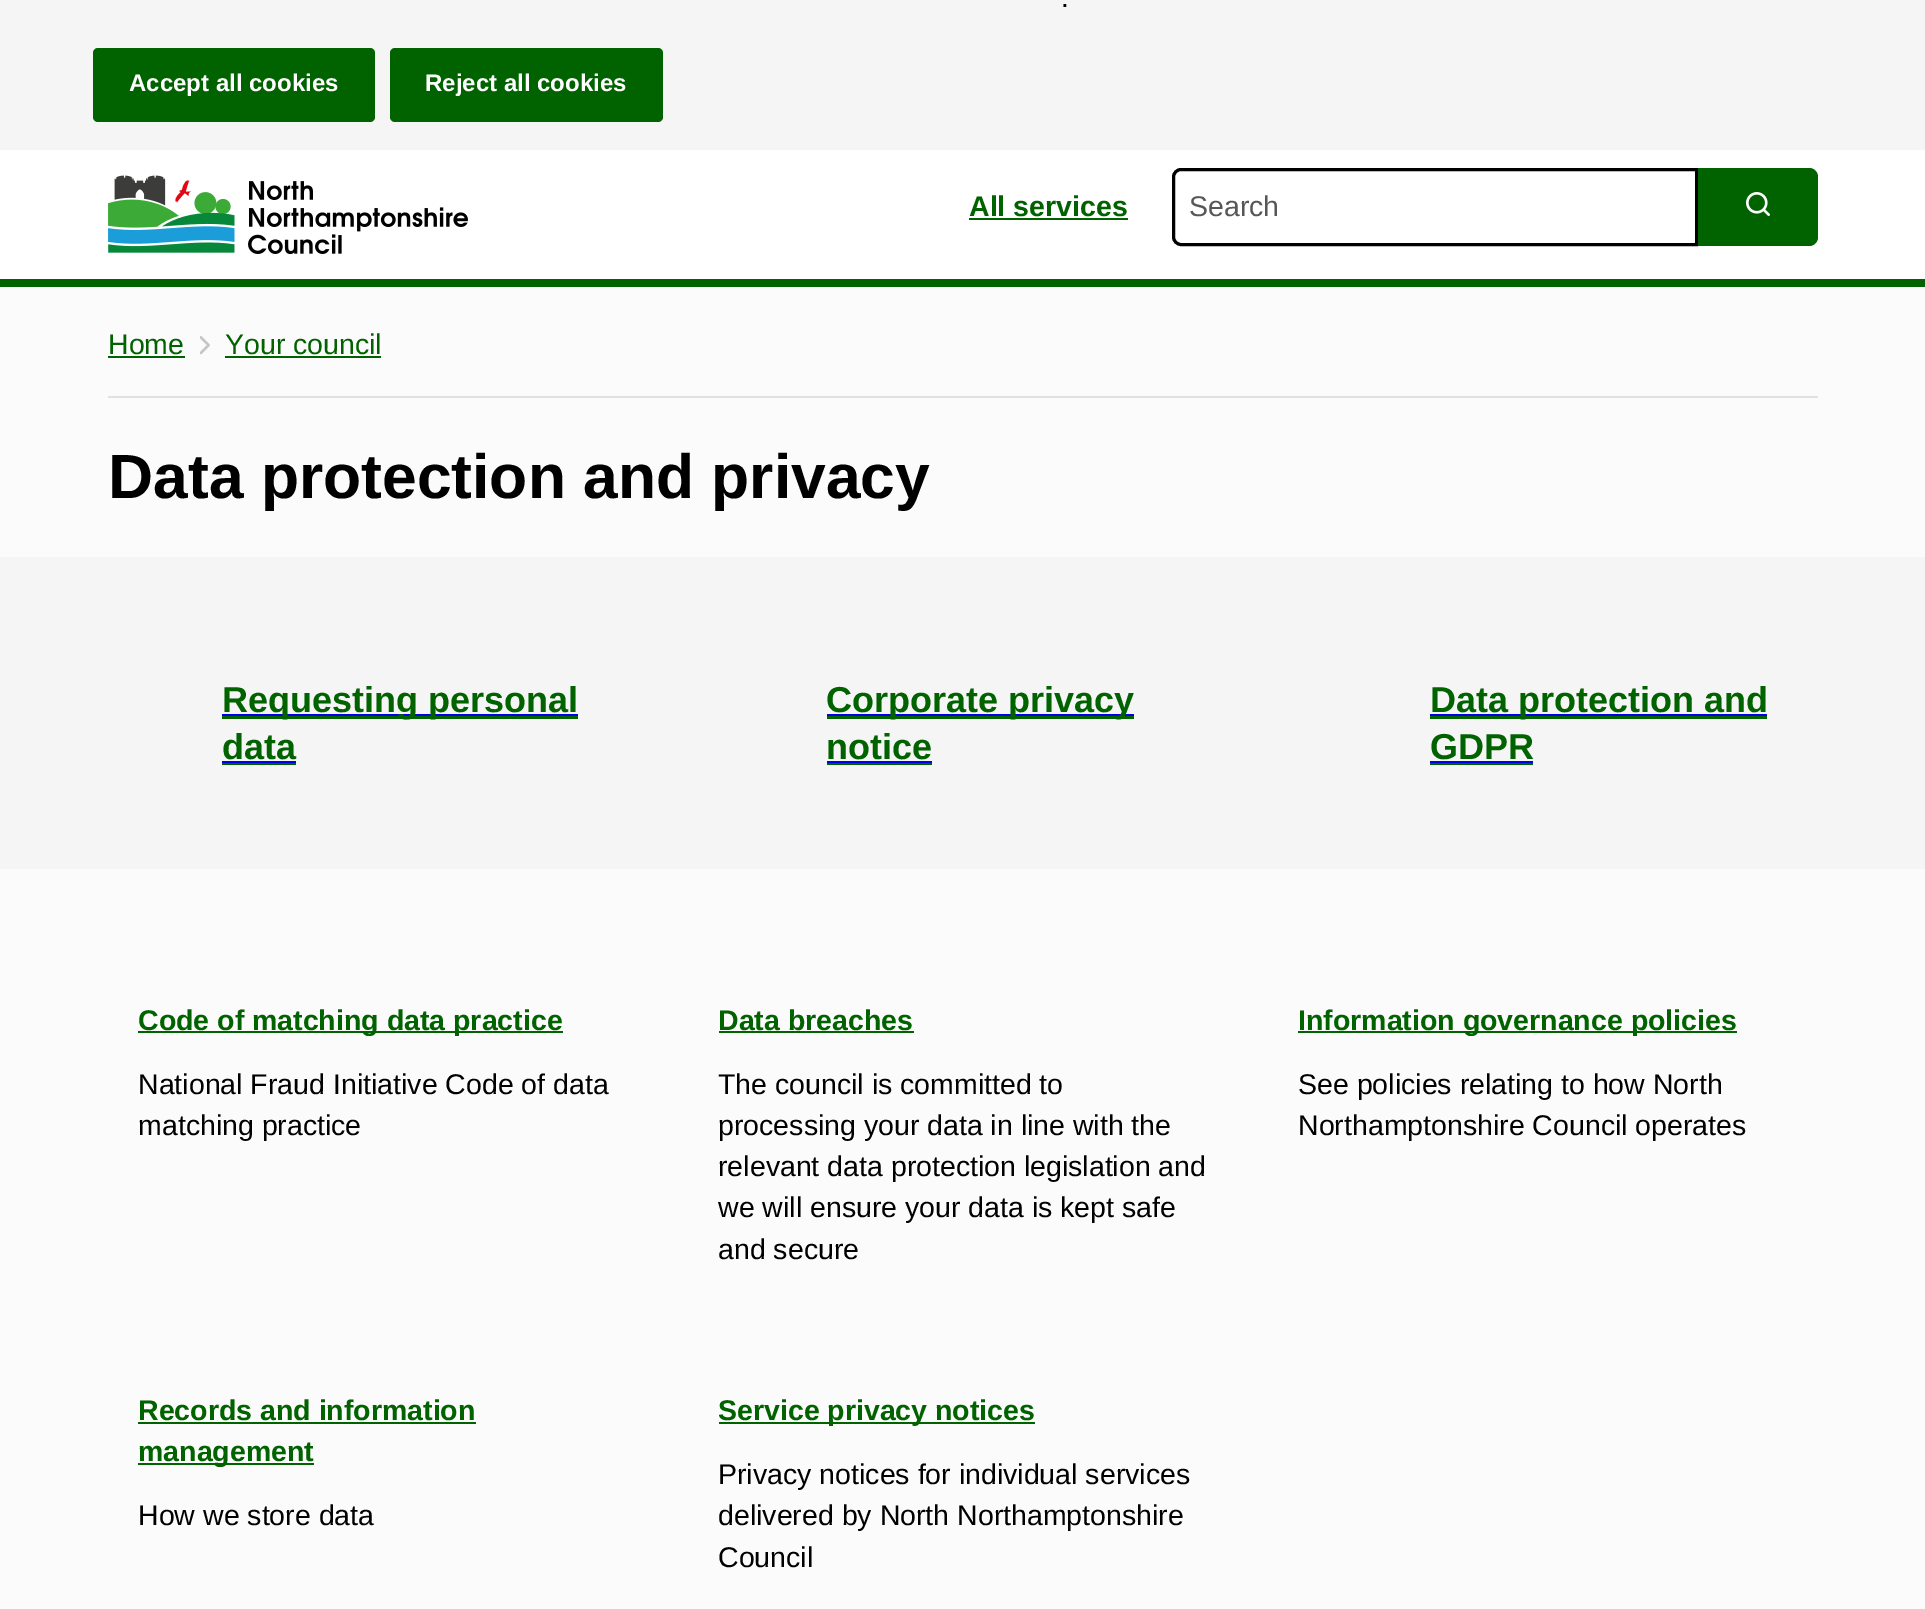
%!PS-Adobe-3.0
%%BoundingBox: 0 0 1925 1609
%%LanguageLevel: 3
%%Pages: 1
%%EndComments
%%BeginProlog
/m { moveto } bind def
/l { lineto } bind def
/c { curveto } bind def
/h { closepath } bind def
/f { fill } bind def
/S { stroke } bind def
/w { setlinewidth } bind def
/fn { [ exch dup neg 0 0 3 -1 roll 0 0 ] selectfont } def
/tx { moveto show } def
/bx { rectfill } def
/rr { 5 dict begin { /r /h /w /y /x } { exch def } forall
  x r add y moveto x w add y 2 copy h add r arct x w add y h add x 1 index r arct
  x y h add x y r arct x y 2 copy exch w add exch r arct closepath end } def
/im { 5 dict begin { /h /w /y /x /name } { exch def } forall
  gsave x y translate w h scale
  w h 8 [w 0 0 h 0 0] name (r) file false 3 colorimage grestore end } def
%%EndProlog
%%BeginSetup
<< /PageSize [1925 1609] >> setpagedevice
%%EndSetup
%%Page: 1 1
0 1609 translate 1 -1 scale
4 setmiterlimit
0.961 setgray
0 0 1925 1609 bx
/LiberationSans-Regular 28.5 fn
0 setgray
(.) 1061 7 tx
0.004 0.384 0 setrgbcolor
93 48 282 74 5 rr f
/LiberationSans-Bold 24 fn
1 setgray
(Accept all cookies) 129 91 tx
0.004 0.384 0 setrgbcolor
390 48 273 74 5 rr f
1 setgray
(Reject all cookies) 425 91 tx
0 150 1925 129 bx
0.004 0.384 0 setrgbcolor
0 279 1925 8 bx
(image0.raw) 108 175 360 79 im
/LiberationSans-Bold 28.5 fn
(All services) 969 216 tx
969 218 159 2 bx
0 setgray
3 w
1181 169.5 m 1696.5 169.5 l 1696.5 244.5 l 1181 244.5 l 1177 244.5 1173.5 241 1173.5 237 c 1173.5 177 l 1173.5 173 1177 169.5 1181 169.5 c h S
/LiberationSans-Regular 28.5 fn
0.345 0.337 0.337 setrgbcolor
(Search) 1189 216 tx
0.004 0.384 0 setrgbcolor
1698 168 m 1809 168 l 1814 168 1818 172 1818 177 c 1818 237 l 1818 242 1814 246 1809 246 c 1698 246 l h f
(image1.raw) 1746 192 24 24 im
0.984 setgray
0 287 1925 270 bx
0.882 setgray
108 396 1710 2 bx
0.004 0.384 0 setrgbcolor
(Home) 108 354 tx
108 356 77 2 bx
(image2.raw) 200 336 10 19 im
(Your council) 225 354 tx
225 356 156 2 bx
/LiberationSans-Bold 62.4 fn
0 setgray
(Data protection and privacy) 108 498 tx
0.004 0.384 0 setrgbcolor
222 716 356 3 bx
0 0 0.933 setrgbcolor
222 714 356 2 bx
/LiberationSans-Bold 36 fn
0.004 0.384 0 setrgbcolor
(Requesting personal) 222 712 tx
(data) 222 759 tx
222 763 74 2 bx
0 0 0.933 setrgbcolor
222 761 74 2 bx
0.004 0.384 0 setrgbcolor
827 716 307 3 bx
0 0 0.933 setrgbcolor
827 714 307 2 bx
0.004 0.384 0 setrgbcolor
(Corporate privacy) 826 712 tx
(notice) 826 759 tx
827 763 105 2 bx
0 0 0.933 setrgbcolor
827 761 105 2 bx
0.004 0.384 0 setrgbcolor
1430 716 337 3 bx
0 0 0.933 setrgbcolor
1430 714 337 2 bx
0.004 0.384 0 setrgbcolor
(Data protection and) 1430 712 tx
(GDPR) 1430 759 tx
1430 763 103 2 bx
0 0 0.933 setrgbcolor
1430 761 103 2 bx
0.984 setgray
0 869 1925 740 bx
0.004 0.384 0 setrgbcolor
138 1031 425 2 bx
/LiberationSans-Bold 28.5 fn
(Code of matching data practice) 138 1030 tx
/LiberationSans-Regular 28.5 fn
0 setgray
(National Fraud Initiative Code of data) 138 1094 tx
(matching practice) 138 1135 tx
/LiberationSans-Bold 28.5 fn
0.004 0.384 0 setrgbcolor
(Data breaches) 718 1030 tx
719 1031 195 2 bx
/LiberationSans-Regular 28.5 fn
0 setgray
(The council is committed to) 718 1094 tx
(processing your data in line with the) 718 1135 tx
(relevant data protection legislation and) 718 1176 tx
(we will ensure your data is kept safe) 718 1217 tx
(and secure) 718 1259 tx
0.004 0.384 0 setrgbcolor
1298 1031 439 2 bx
/LiberationSans-Bold 28.5 fn
(Information governance policies) 1298 1030 tx
/LiberationSans-Regular 28.5 fn
0 setgray
(See policies relating to how North) 1298 1094 tx
(Northamptonshire Council operates) 1298 1135 tx
/LiberationSans-Bold 28.5 fn
0.004 0.384 0 setrgbcolor
(Records and information) 138 1420 tx
138 1422 338 2 bx
138 1463 176 2 bx
(management) 138 1461 tx
/LiberationSans-Regular 28.5 fn
0 setgray
(How we store data) 138 1525 tx
0.004 0.384 0 setrgbcolor
719 1422 316 2 bx
/LiberationSans-Bold 28.5 fn
(Service privacy notices) 718 1420 tx
/LiberationSans-Regular 28.5 fn
0 setgray
(Privacy notices for individual services) 718 1484 tx
(delivered by North Northamptonshire) 718 1525 tx
(Council) 718 1567 tx
showpage
%%EOF
